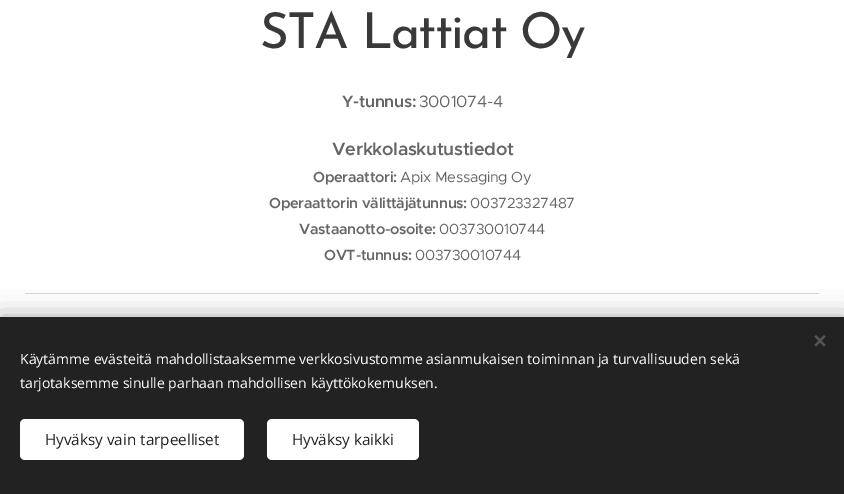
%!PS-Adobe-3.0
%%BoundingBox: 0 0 844 494
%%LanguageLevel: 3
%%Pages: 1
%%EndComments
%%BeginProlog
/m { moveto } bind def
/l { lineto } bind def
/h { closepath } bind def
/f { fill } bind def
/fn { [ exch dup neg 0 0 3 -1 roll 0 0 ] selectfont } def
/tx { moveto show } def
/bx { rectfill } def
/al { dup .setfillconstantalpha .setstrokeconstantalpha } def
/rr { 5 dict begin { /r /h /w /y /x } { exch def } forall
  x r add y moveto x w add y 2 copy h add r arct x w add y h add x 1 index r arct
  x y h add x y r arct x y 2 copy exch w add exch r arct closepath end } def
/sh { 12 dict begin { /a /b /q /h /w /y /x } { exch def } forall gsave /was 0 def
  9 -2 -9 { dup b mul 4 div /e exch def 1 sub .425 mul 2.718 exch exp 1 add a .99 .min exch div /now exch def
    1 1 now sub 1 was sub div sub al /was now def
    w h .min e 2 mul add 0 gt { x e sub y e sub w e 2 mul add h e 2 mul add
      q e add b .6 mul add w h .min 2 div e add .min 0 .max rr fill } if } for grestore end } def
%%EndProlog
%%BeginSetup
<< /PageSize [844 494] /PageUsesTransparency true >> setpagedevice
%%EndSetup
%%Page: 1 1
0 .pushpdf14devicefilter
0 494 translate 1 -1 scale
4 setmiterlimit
1 setgray
0 0 844 494 bx
/JosefinSans-Regular 49.5 fn
0.224 setgray
260 48 m -1.6 0 (STA Lattiat Oy) ashow
/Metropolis-SemiBold 16.5 fn
0.4 setgray
342 107 m -0.3 0 (Y-tunnus:) ashow
/Metropolis-Regular 16.5 fn
419 107 m -0.3 0 (3001074-4) ashow
/Metropolis-SemiBold 18 fn
332 155 m -0.3 0 (Verkkolaskutustiedot) ashow
/Metropolis-SemiBold 14.75 fn
313 182 m -0.3 0 (Operaattori:) ashow
/Metropolis-Regular 14.75 fn
400 182 m -0.3 0 (Apix Messaging Oy) ashow
/Metropolis-SemiBold 14.75 fn
269 208 m -0.3 0 (Operaattorin välittäjätunnus:) ashow
/Metropolis-Regular 14.75 fn
470 208 m -0.3 0 (003723327487) ashow
/Metropolis-SemiBold 14.75 fn
299 234 m -0.3 0 (Vastaanotto-osoite:) ashow
/Metropolis-Regular 14.75 fn
439 234 m -0.3 0 (003730010744) ashow
/Metropolis-SemiBold 14.75 fn
324 260 m -0.3 0 (OVT-tunnus:) ashow
/Metropolis-Regular 14.75 fn
415 260 m -0.3 0 (003730010744) ashow
0.831 setgray
25 293 794 1 bx
0 setgray
0 317 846 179 0 12.5 0.33 sh
0.133 setgray
0 317 844 177 bx
0.333 setgray
814.5 345 m 824 335 l 825.5 336.5 l 816 346.5 l h f
816 335 m 825.5 345 l 824 346.5 l 814.5 336.5 l h f
/OpenSans-Regular 14 fn
1 setgray
(Käytämme evästeitä mahdollistaaksemme verkkosivustomme asianmukaisen toiminnan ja turvallisuuden sekä) 20 364 tx
(tarjotaksemme sinulle parhaan mahdollisen käyttökokemuksen.) 20 388 tx
20 419 224 41 5 rr f
/OpenSans-Regular 15.25 fn
0.133 setgray
(Hyväksy vain tarpeelliset) 45 445 tx
1 setgray
267 419 152 41 5 rr f
0.133 setgray
(Hyväksy kaikki) 292 445 tx
.poppdf14devicefilter showpage
%%EOF
